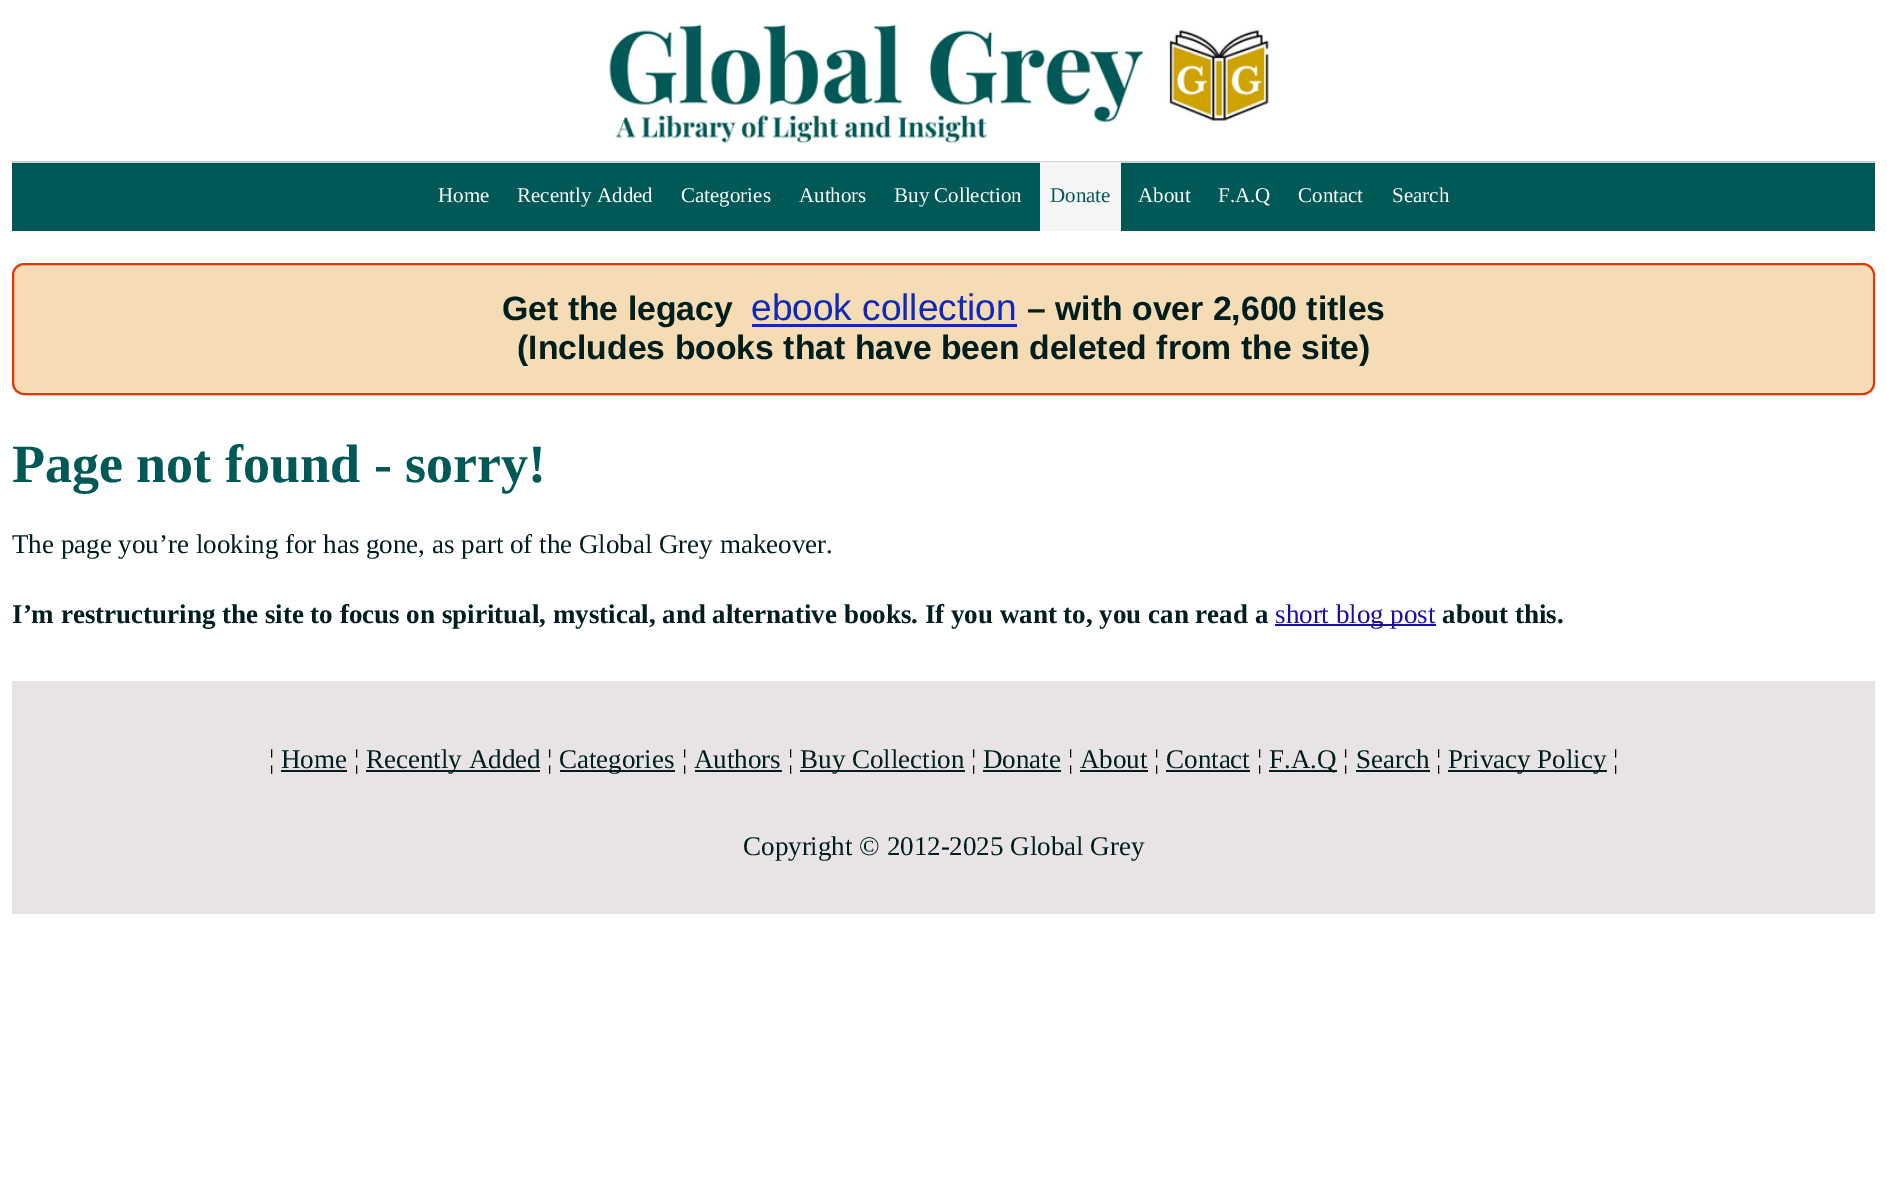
%!PS-Adobe-3.0
%%BoundingBox: 0 0 1887 1194
%%LanguageLevel: 3
%%Pages: 1
%%EndComments
%%BeginProlog
/f { fill } bind def
/S { stroke } bind def
/q { gsave } bind def
/Q { grestore } bind def
/w { setlinewidth } bind def
/fn { [ exch dup neg 0 0 3 -1 roll 0 0 ] selectfont } def
/tx { moveto show } def
/bx { rectfill } def
/rr { 5 dict begin { /r /h /w /y /x } { exch def } forall
  x r add y moveto x w add y 2 copy h add r arct x w add y h add x 1 index r arct
  x y h add x y r arct x y 2 copy exch w add exch r arct closepath end } def
/im { 5 dict begin { /h /w /y /x /name } { exch def } forall
  gsave x y translate w h scale
  w h 8 [w 0 0 h 0 0] name (r) file false 3 colorimage grestore end } def
%%EndProlog
%%BeginSetup
<< /PageSize [1887 1194] >> setpagedevice
%%EndSetup
%%Page: 1 1
0 1194 translate 1 -1 scale
4 setmiterlimit
1 setgray
0 0 1887 1194 bx
(image0.raw) 609 24 660 120 im
0 0.349 0.337 setrgbcolor
12 163 1863 68 bx
0.8 0.82 0.82 setrgbcolor
12 161 1863 2 bx
/LiberationSerif-Regular 21 fn
1 setgray
(Home) 438 202 tx
(Recently Added) 517 202 tx
(Categories) 681 202 tx
(Authors) 799 202 tx
(Buy Collection) 894 202 tx
0.961 setgray
1040 162 81 69 bx
0 0.349 0.337 setrgbcolor
(Donate) 1050 202 tx
1 setgray
(About) 1138 202 tx
(F.A.Q) 1218 202 tx
(Contact) 1298 202 tx
(Search) 1392 202 tx
0.961 0.863 0.706 setrgbcolor
13 264 1861 130 11 rr q f Q
0.882 0.22 0.039 setrgbcolor
2 w
S
/LiberationSans-Bold 33.75 fn
0 0.118 0.114 setrgbcolor
(Get the legacy) 502 320 tx
/LiberationSans-Regular 37 fn
0.059 0.161 0.745 setrgbcolor
(ebook collection) 751 320 tx
752 324 265 3 bx
/LiberationSans-Bold 33.75 fn
0 0.118 0.114 setrgbcolor
(– with over 2,600 titles) 1027 320 tx
(\(Includes books that have been deleted from the site\)) 517 359 tx
/LiberationSerif-Bold 54 fn
0 0.349 0.337 setrgbcolor
(Page not found - sorry!) 12 482 tx
/LiberationSerif-Regular 27 fn
0 0.118 0.114 setrgbcolor
(The page you’re looking for has gone, as part of the Global Grey makeover.) 12 553 tx
/LiberationSerif-Bold 27 fn
(I’m restructuring the site to focus on spiritual, mystical, and alternative books. If you want to, you can read a) 12 623 tx
0.102 0.051 0.671 setrgbcolor
1275 624 161 2 bx
/LiberationSerif-Regular 27 fn
(short blog post) 1275 623 tx
/LiberationSerif-Bold 27 fn
0 0.118 0.114 setrgbcolor
(about this.) 1442 623 tx
0.91 0.894 0.902 setrgbcolor
12 681 1863 233 bx
/LiberationSerif-Regular 27 fn
0 setgray
(¦) 269 768 tx
0 0.118 0.114 setrgbcolor
(Home) 281 768 tx
281 770 66 2 bx
0 setgray
(¦) 354 768 tx
0 0.118 0.114 setrgbcolor
366 770 174 2 bx
(Recently Added) 366 768 tx
0 setgray
(¦) 547 768 tx
0 0.118 0.114 setrgbcolor
560 770 115 2 bx
(Categories) 559 768 tx
0 setgray
(¦) 682 768 tx
0 0.118 0.114 setrgbcolor
(Authors) 694 768 tx
695 770 87 2 bx
0 setgray
(¦) 788 768 tx
0 0.118 0.114 setrgbcolor
800 770 165 2 bx
(Buy Collection) 800 768 tx
0 setgray
(¦) 971 768 tx
0 0.118 0.114 setrgbcolor
(Donate) 983 768 tx
983 770 78 2 bx
0 setgray
(¦) 1068 768 tx
0 0.118 0.114 setrgbcolor
(About) 1080 768 tx
1080 770 68 2 bx
0 setgray
(¦) 1154 768 tx
0 0.118 0.114 setrgbcolor
(Contact) 1166 768 tx
1166 770 84 2 bx
0 setgray
(¦) 1257 768 tx
0 0.118 0.114 setrgbcolor
1269 770 68 2 bx
(F.A.Q) 1269 768 tx
0 setgray
(¦) 1343 768 tx
0 0.118 0.114 setrgbcolor
(Search) 1356 768 tx
1356 770 74 2 bx
0 setgray
(¦) 1436 768 tx
0 0.118 0.114 setrgbcolor
1448 770 159 2 bx
(Privacy Policy) 1448 768 tx
0 setgray
(¦) 1613 768 tx
0 0.118 0.114 setrgbcolor
(Copyright © 2012-2025 Global Grey) 743 855 tx
showpage
%%EOF
